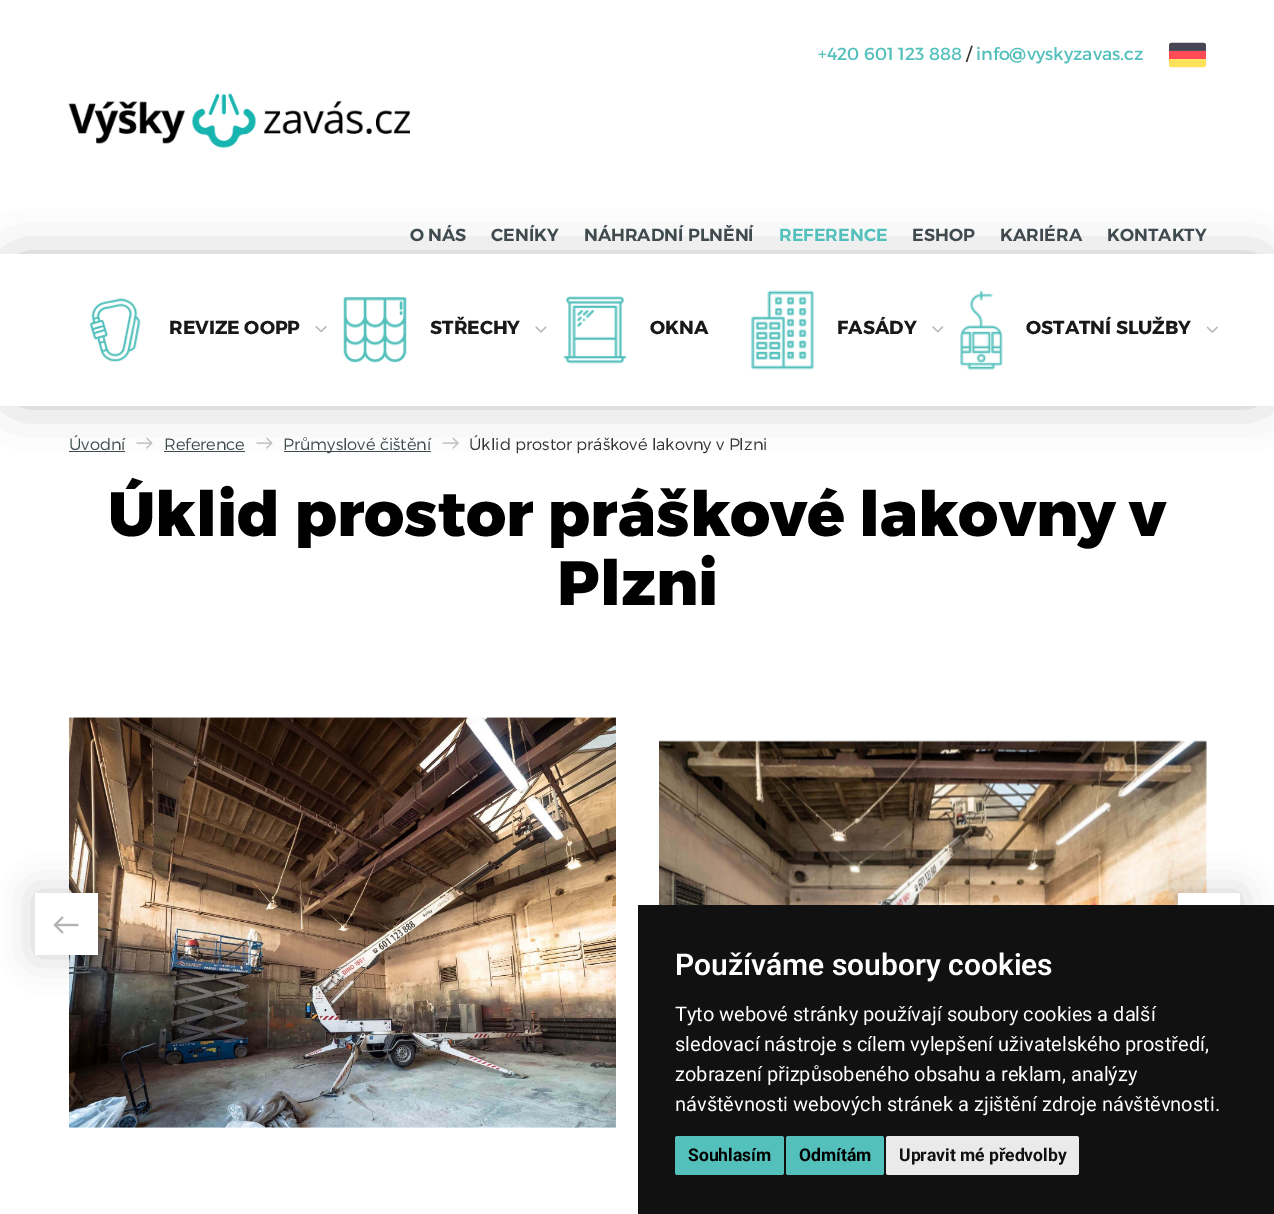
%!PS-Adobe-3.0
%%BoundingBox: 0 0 1274 1214
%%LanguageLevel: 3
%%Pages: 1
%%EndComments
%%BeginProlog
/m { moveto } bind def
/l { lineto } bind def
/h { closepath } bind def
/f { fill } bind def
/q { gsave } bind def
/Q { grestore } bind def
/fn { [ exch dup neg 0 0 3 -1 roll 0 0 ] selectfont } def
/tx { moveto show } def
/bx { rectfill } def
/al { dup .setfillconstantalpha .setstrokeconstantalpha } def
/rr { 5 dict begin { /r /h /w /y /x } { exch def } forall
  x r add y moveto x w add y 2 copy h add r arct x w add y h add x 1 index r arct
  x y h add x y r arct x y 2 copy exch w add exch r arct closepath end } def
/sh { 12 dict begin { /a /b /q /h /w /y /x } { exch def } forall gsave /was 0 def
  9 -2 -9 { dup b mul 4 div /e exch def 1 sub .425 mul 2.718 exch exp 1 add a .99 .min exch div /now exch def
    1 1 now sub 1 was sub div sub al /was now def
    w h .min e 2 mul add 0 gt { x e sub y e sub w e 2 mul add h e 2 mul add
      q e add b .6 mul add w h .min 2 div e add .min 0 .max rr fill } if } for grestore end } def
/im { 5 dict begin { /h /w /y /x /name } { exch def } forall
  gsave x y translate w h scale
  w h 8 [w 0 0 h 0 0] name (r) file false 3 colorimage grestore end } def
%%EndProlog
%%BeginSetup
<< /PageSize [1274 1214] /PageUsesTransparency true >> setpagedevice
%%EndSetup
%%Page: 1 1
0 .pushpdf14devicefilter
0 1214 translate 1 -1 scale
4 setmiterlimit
1 setgray
0 0 1274 1214 bx
/Montserrat-Regular 17.5 fn
0.329 0.753 0.737 setrgbcolor
(+420 601 123 888) 818 60 tx
0.2 setgray
(/) 966 60 tx
0.329 0.753 0.737 setrgbcolor
(info@vyskyzavas.cz) 976 60 tx
(image0.raw) 1169 42 37 26 im
(image1.raw) 68 93 342 55 im
q
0 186 m 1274 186 l 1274 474 l 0 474 l h 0 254 m 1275 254 l 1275 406 l 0 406 l h eoclip newpath
0 setgray
18 271 1240 118 0 28 0.4 sh
Q
/Montserrat-SemiBold 17.5 fn
0.251 0.294 0.314 setrgbcolor
(O NÁS) 410 241 tx
(CENÍKY) 491 241 tx
(NÁHRADNÍ PLNĚNÍ) 584 241 tx
0.329 0.753 0.737 setrgbcolor
(REFERENCE) 779 241 tx
0.251 0.294 0.314 setrgbcolor
(ESHOP) 912 241 tx
(KARIÉRA) 1000 241 tx
(KONTAKTY) 1107 241 tx
(image2.raw) 89 298 52 64 im
/Montserrat-Bold 18.75 fn
0.098 setgray
(REVIZE OOPP) 169 334 tx
(image3.raw) 315 326 12 7 im
(image4.raw) 343 297 64 66 im
(STŘECHY) 430 334 tx
(image5.raw) 535 326 12 7 im
(image6.raw) 563 296 64 68 im
(OKNA) 650 334 tx
(image7.raw) 751 290 63 80 im
(FASÁDY) 837 334 tx
(image8.raw) 932 326 12 7 im
(image9.raw) 960 290 43 80 im
(OSTATNÍ SLUŽBY) 1026 334 tx
(image10.raw) 1206 326 12 7 im
/Montserrat-Light 16.25 fn
0.251 0.294 0.314 setrgbcolor
(Úvodní) 69 450 tx
69 451 56 1 bx
(image11.raw) 136 437 17 12 im
(Reference) 164 450 tx
164 451 81 1 bx
(image11.raw) 256 437 17 12 im
284 451 147 1 bx
(Průmyslové čištění) 283 450 tx
(image12.raw) 442 437 17 12 im
0.2 setgray
(Úklid prostor práškové lakovny v Plzni) 469 450 tx
/Montserrat-ExtraBold 62.5 fn
0 setgray
(Úklid prostor práškové lakovny v) 108 536 tx
(Plzni) 557 605 tx
(image13.raw) 69 717 547 411 im
(image14.raw) 659 740 548 165 im
0 0.004 0.004 setrgbcolor
35 893 63 62 0 18 0.19 sh
1 setgray
35 893 63 62 bx
(image15.raw) 53 916 26 18 im
0 0.004 0.004 setrgbcolor
1178 893 62 62 0 18 0.19 sh
1 setgray
1178 893 62 12 bx
0.067 setgray
638 905 636 309 bx
/Roboto-SemiBold 30 fn
1 setgray
(Používáme soubory cookies) 675 975 tx
/Roboto-Regular 20 fn
(Tyto webové stránky používají soubory cookies a další) 675 1021 tx
(sledovací nástroje s cílem vylepšení uživatelského prostředí,) 675 1051 tx
(zobrazení přizpůsobeného obsahu a reklam, analýzy) 675 1081 tx
(návštěvnosti webových stránek a zjištění zdroje návštěvnosti.) 675 1111 tx
0.329 0.753 0.737 setrgbcolor
675 1136 109 39 2.5 rr f
/Roboto-Bold 17.5 fn
0 setgray
(Souhlasím) 688 1161 tx
0.329 0.753 0.737 setrgbcolor
786 1136 98 39 2.5 rr f
0 setgray
(Odmítám) 799 1161 tx
0.918 setgray
886 1136 193 39 2.5 rr f
0.067 setgray
(Upravit mé předvolby) 899 1161 tx
.poppdf14devicefilter showpage
%%EOF
